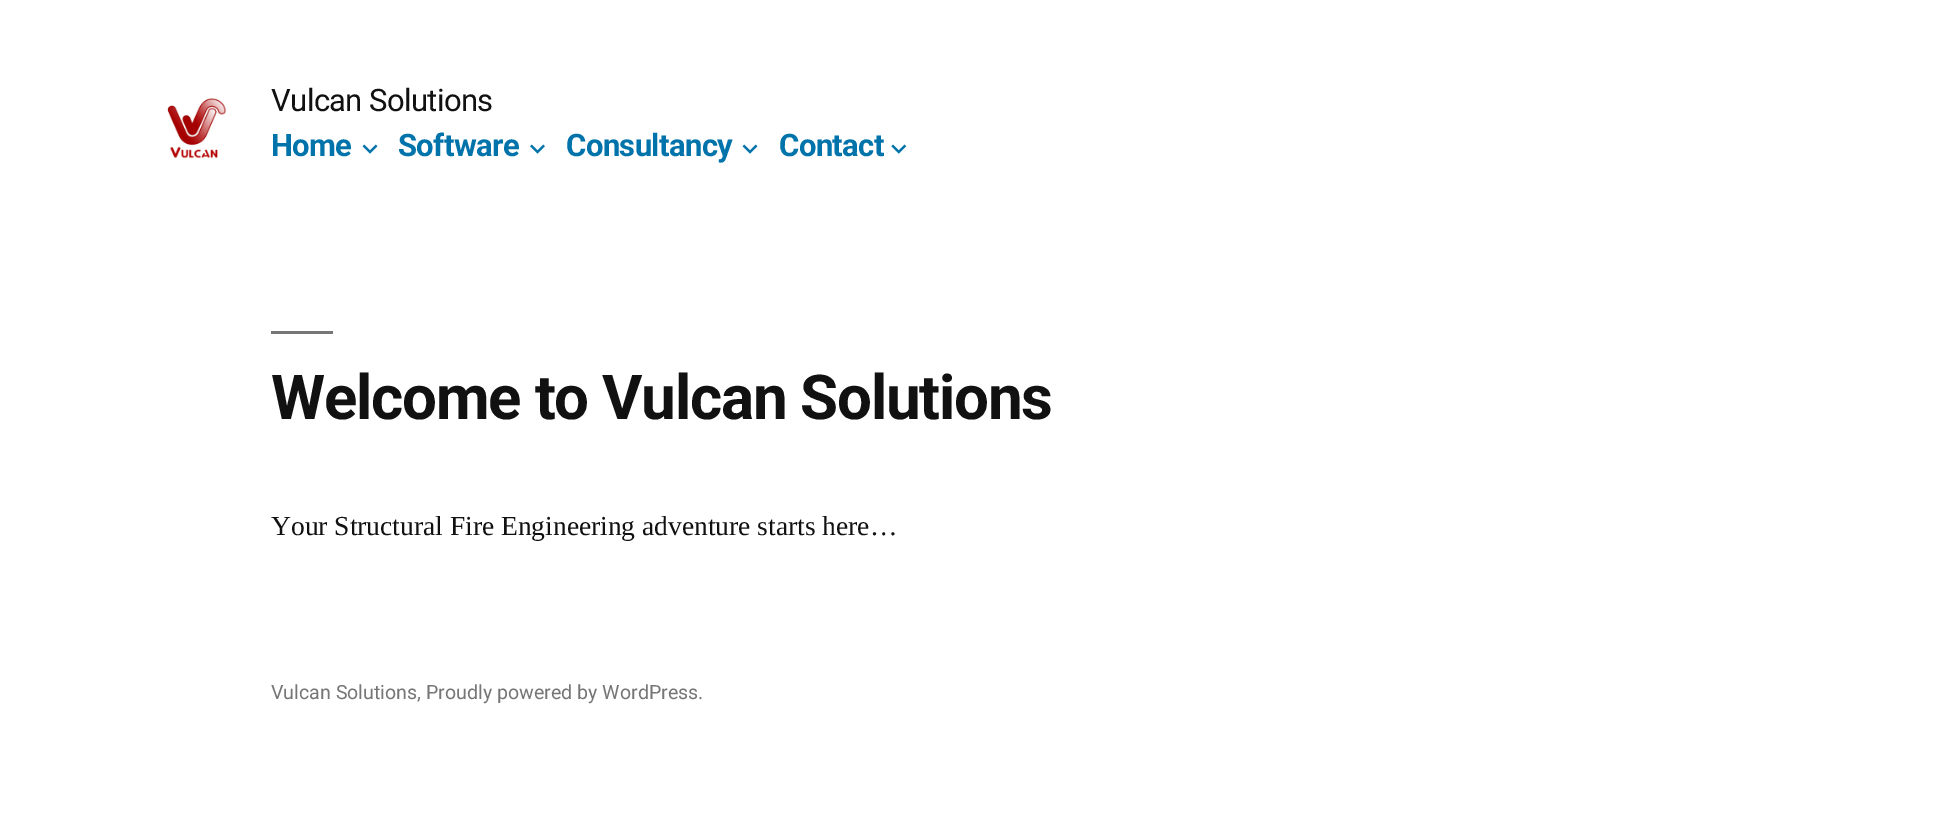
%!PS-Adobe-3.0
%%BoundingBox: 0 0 1957 823
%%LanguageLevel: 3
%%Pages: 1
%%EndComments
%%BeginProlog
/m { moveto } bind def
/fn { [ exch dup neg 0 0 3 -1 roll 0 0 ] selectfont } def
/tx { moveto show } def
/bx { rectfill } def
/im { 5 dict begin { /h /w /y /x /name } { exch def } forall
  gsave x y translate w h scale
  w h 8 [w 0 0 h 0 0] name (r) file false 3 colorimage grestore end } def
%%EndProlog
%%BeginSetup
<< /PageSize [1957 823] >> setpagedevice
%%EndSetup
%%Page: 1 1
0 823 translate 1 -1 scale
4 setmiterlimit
1 setgray
0 0 1957 823 bx
(image0.raw) 167 98 60 61 im
/Roboto-Regular 31 fn
0.067 setgray
271 111 m -0.6 0 (Vulcan Solutions) ashow
/Roboto-Bold 31 fn
0 0.451 0.667 setrgbcolor
271 156 m -0.6 0 (Home) ashow
(image1.raw) 362 144 16 10 im
398 156 m -0.6 0 (Software) ashow
(image2.raw) 530 144 15 10 im
566 156 m -0.6 0 (Consultancy) ashow
(image1.raw) 742 144 16 10 im
779 156 m -0.6 0 (Contact) ashow
(image3.raw) 891 144 16 10 im
0.463 setgray
271 331 62 3 bx
/Roboto-Bold 61.9 fn
0.067 setgray
271 419 m -1.25 0 (Welcome to Vulcan Solutions) ashow
/LiberationSerif-Regular 27.5 fn
(Your Structural Fire Engineering adventure starts here…) 271 535 tx
/Roboto-Regular 19.6 fn
0.463 setgray
(Vulcan Solutions, Proudly powered by WordPress.) 271 699 tx
showpage
%%EOF
